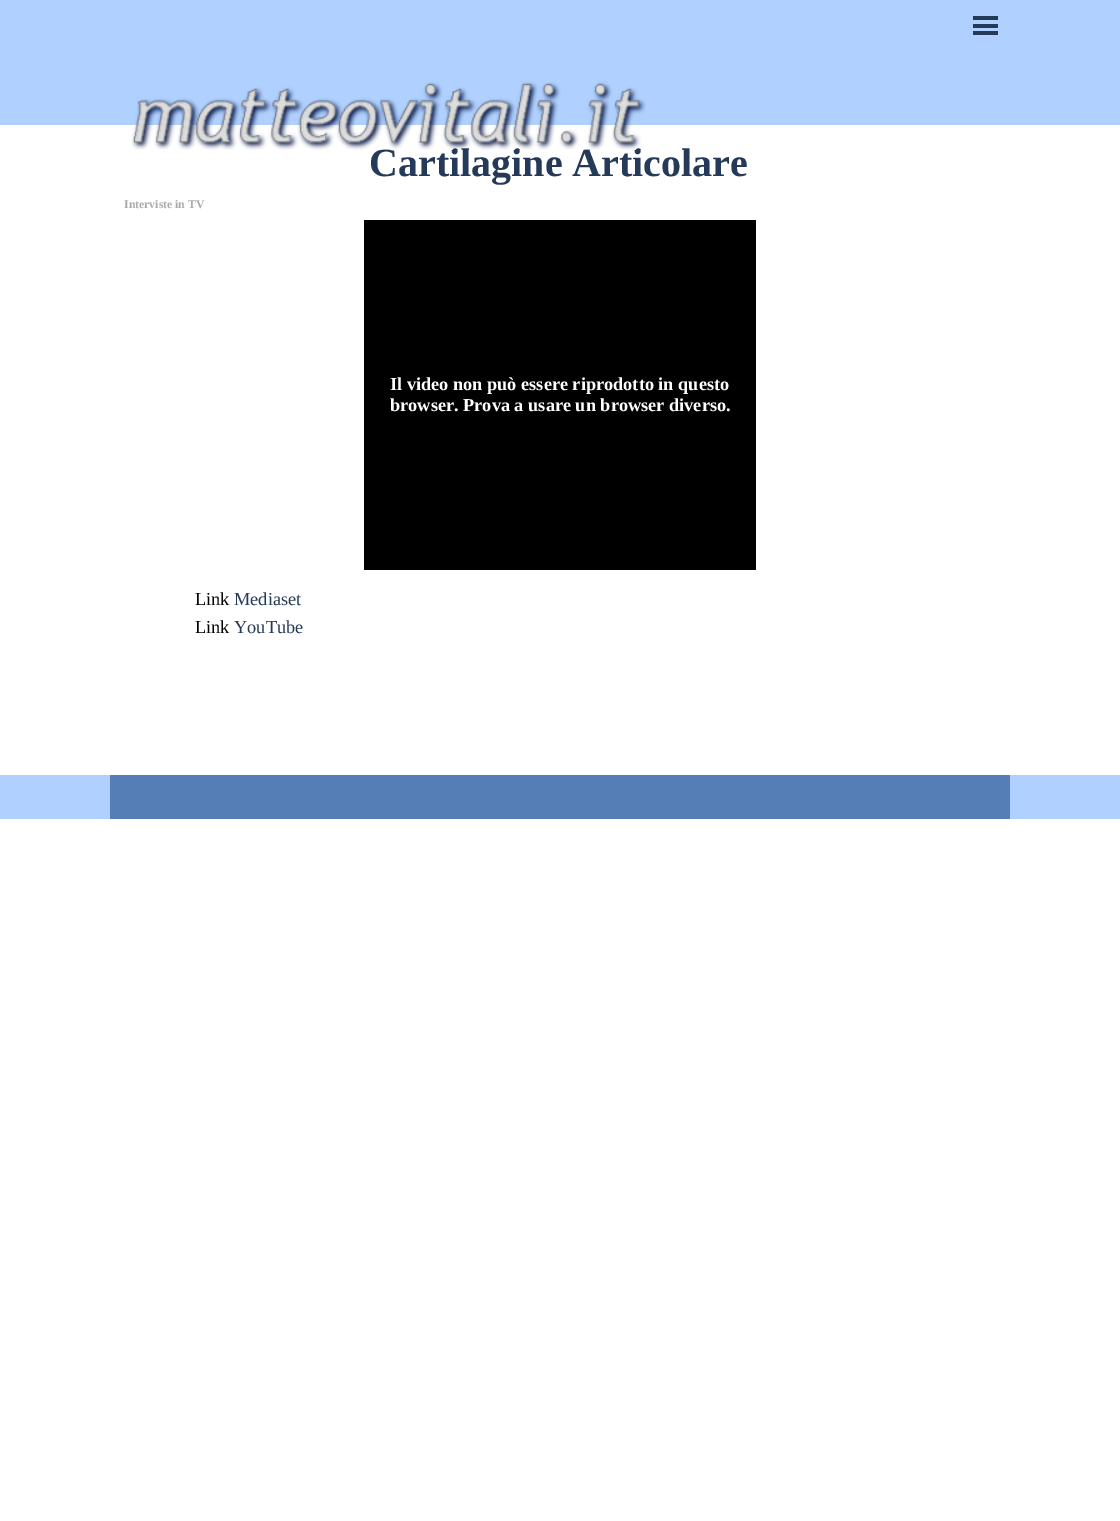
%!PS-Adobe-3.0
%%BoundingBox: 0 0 1120 1521
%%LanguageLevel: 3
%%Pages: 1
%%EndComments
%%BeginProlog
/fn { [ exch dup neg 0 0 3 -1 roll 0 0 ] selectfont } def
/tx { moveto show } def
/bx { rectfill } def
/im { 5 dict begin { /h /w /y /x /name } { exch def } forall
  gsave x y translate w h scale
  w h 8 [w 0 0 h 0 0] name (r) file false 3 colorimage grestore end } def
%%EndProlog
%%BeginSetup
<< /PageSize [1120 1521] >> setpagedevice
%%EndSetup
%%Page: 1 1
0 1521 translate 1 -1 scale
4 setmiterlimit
1 setgray
0 0 1120 1521 bx
0.69 0.82 1 setrgbcolor
0 0 1120 125 bx
0.145 0.227 0.345 setrgbcolor
973 16 25 4 bx
973 24 25 4 bx
973 31 25 4 bx
/LiberationSerif-Bold 40 fn
(Cartilagine Articolare) 369 176 tx
(image0.raw) 131 81 515 69 im
/LiberationSerif-Bold 11.75 fn
0.663 setgray
(Interviste in TV) 124 208 tx
0 setgray
364 220 392 350 bx
/LiberationSerif-Bold 18.3 fn
1 setgray
(Il video non può essere riprodotto in questo) 390 390 tx
(browser. Prova a usare un browser diverso.) 390 411 tx
/LiberationSerif-Regular 18.3 fn
0 setgray
(Link) 195 605 tx
0.145 0.227 0.345 setrgbcolor
(Mediaset) 234 605 tx
0 setgray
(Link) 195 633 tx
0.145 0.227 0.345 setrgbcolor
(YouTube) 234 633 tx
0.69 0.82 1 setrgbcolor
0 775 1120 44 bx
0.337 0.494 0.714 setrgbcolor
110 775 900 44 bx
showpage
%%EOF
